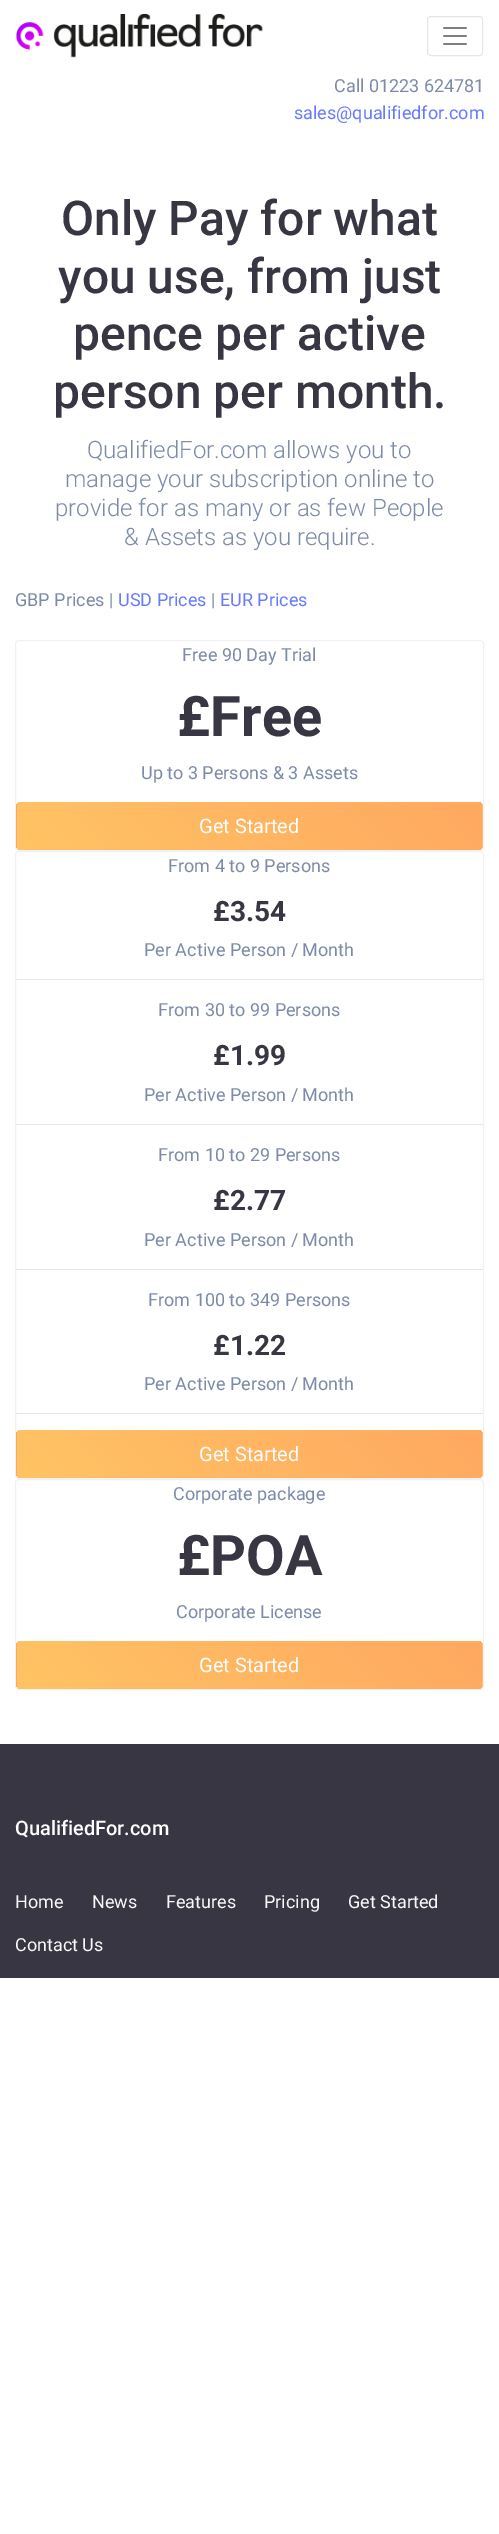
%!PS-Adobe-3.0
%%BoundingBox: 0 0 499 2534
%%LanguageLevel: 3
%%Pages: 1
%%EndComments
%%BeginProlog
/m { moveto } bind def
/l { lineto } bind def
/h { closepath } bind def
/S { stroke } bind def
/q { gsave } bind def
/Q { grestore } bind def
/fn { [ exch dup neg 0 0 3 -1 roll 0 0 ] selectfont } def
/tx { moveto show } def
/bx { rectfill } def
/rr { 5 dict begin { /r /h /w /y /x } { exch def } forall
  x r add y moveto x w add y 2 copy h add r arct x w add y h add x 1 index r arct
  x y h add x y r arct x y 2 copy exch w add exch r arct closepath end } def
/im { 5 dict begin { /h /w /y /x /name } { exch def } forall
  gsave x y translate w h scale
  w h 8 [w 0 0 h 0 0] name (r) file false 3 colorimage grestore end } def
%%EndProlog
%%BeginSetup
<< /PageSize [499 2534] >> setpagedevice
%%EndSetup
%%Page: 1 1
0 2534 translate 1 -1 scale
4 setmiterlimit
1 setgray
0 0 499 2534 bx
(image0.raw) 16 13 247 45 im
0.902 setgray
427.5 16.5 55 39 3.5 rr S
(image1.raw) 443 27 24 18 im
/Roboto-Regular 18 fn
0.49 0.545 0.663 setrgbcolor
(Call 01223 624781) 334 92 tx
0.404 0.482 1 setrgbcolor
(sales@qualifiedfor.com) 294 119 tx
/Roboto-Medium 48 fn
0.216 0.212 0.259 setrgbcolor
(Only Pay for what) 61 235 tx
(you use, from just) 58 293 tx
(pence per active) 73 350 tx
(person per month.) 53 408 tx
/Roboto-Light 24 fn
0.49 0.545 0.663 setrgbcolor
(QualifiedFor.com allows you to) 87 458 tx
(manage your subscription online to) 65 487 tx
(provide for as many or as few People) 55 516 tx
(& Assets as you require.) 124 545 tx
/Roboto-Regular 18 fn
(GBP Prices |) 15 606 tx
0.404 0.482 1 setrgbcolor
(USD Prices) 118 606 tx
0.49 0.545 0.663 setrgbcolor
(|) 211 606 tx
0.404 0.482 1 setrgbcolor
(EUR Prices) 220 606 tx
0.941 0.945 0.949 setrgbcolor
15.5 640.5 468 210 3.5 rr S
0.49 0.545 0.663 setrgbcolor
(Free 90 Day Trial) 182 661 tx
/Roboto-Bold 56 fn
0.216 0.212 0.259 setrgbcolor
(£Free) 177 736 tx
/Roboto-Regular 18 fn
0.49 0.545 0.663 setrgbcolor
(Up to 3 Persons & 3 Assets) 141 779 tx
q
16 802 467 48 5 rr clip newpath
q 17 802 m 482 802 l 482 803 l 17 803 l h clip newpath
<< /ShadingType 2 /ColorSpace /DeviceRGB /Coords [122 908 377 652] /Extend [true true] /Function << /FunctionType 2 /Domain [0 1] /C0 [1 0.769 0.392] /C1 [1 0.659 0.376] /N 1 >> >> shfill Q
q 16 803 m 17 803 l 17 849 l 16 849 l h clip newpath
<< /ShadingType 2 /ColorSpace /DeviceRGB /Coords [-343 954 -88 698] /Extend [true true] /Function << /FunctionType 2 /Domain [0 1] /C0 [1 0.769 0.392] /C1 [1 0.659 0.376] /N 1 >> >> shfill Q
q 17 803 m 482 803 l 482 849 l 17 849 l h clip newpath
<< /ShadingType 2 /ColorSpace /DeviceRGB /Coords [122 954 377 698] /Extend [true true] /Function << /FunctionType 2 /Domain [0 1] /C0 [1 0.769 0.392] /C1 [1 0.659 0.376] /N 1 >> >> shfill Q
q 482 803 m 483 803 l 483 849 l 482 849 l h clip newpath
<< /ShadingType 2 /ColorSpace /DeviceRGB /Coords [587 954 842 698] /Extend [true true] /Function << /FunctionType 2 /Domain [0 1] /C0 [1 0.769 0.392] /C1 [1 0.659 0.376] /N 1 >> >> shfill Q
q 17 849 m 482 849 l 482 850 l 17 850 l h clip newpath
<< /ShadingType 2 /ColorSpace /DeviceRGB /Coords [122 1000 377 744] /Extend [true true] /Function << /FunctionType 2 /Domain [0 1] /C0 [1 0.769 0.392] /C1 [1 0.659 0.376] /N 1 >> >> shfill Q
Q
/Roboto-Regular 20 fn
1 setgray
(Get Started) 199 833 tx
0.941 0.945 0.949 setrgbcolor
15.5 851.5 468 627 3.5 rr S
/Roboto-Regular 18 fn
0.49 0.545 0.663 setrgbcolor
(From 4 to 9 Persons) 168 872 tx
/Roboto-Bold 28 fn
0.216 0.212 0.259 setrgbcolor
(£3.54) 213 921 tx
/Roboto-Regular 18 fn
0.49 0.545 0.663 setrgbcolor
(Per Active Person / Month) 144 956 tx
0.902 setgray
16 979 467 1 bx
0.49 0.545 0.663 setrgbcolor
(From 30 to 99 Persons) 158 1016 tx
/Roboto-Bold 28 fn
0.216 0.212 0.259 setrgbcolor
(£1.99) 213 1065 tx
/Roboto-Regular 18 fn
0.49 0.545 0.663 setrgbcolor
(Per Active Person / Month) 144 1101 tx
0.902 setgray
16 1124 467 1 bx
0.49 0.545 0.663 setrgbcolor
(From 10 to 29 Persons) 158 1161 tx
/Roboto-Bold 28 fn
0.216 0.212 0.259 setrgbcolor
(£2.77) 213 1210 tx
/Roboto-Regular 18 fn
0.49 0.545 0.663 setrgbcolor
(Per Active Person / Month) 144 1246 tx
0.902 setgray
16 1269 467 1 bx
0.49 0.545 0.663 setrgbcolor
(From 100 to 349 Persons) 148 1306 tx
/Roboto-Bold 28 fn
0.216 0.212 0.259 setrgbcolor
(£1.22) 213 1355 tx
/Roboto-Regular 18 fn
0.49 0.545 0.663 setrgbcolor
(Per Active Person / Month) 144 1390 tx
0.902 setgray
16 1413 467 1 bx
q
16 1430 467 48 5 rr clip newpath
q 17 1430 m 482 1430 l 482 1431 l 17 1431 l h clip newpath
<< /ShadingType 2 /ColorSpace /DeviceRGB /Coords [122 1536 377 1280] /Extend [true true] /Function << /FunctionType 2 /Domain [0 1] /C0 [1 0.769 0.392] /C1 [1 0.659 0.376] /N 1 >> >> shfill Q
q 16 1431 m 17 1431 l 17 1477 l 16 1477 l h clip newpath
<< /ShadingType 2 /ColorSpace /DeviceRGB /Coords [-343 1582 -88 1326] /Extend [true true] /Function << /FunctionType 2 /Domain [0 1] /C0 [1 0.769 0.392] /C1 [1 0.659 0.376] /N 1 >> >> shfill Q
q 17 1431 m 482 1431 l 482 1477 l 17 1477 l h clip newpath
<< /ShadingType 2 /ColorSpace /DeviceRGB /Coords [122 1582 377 1326] /Extend [true true] /Function << /FunctionType 2 /Domain [0 1] /C0 [1 0.769 0.392] /C1 [1 0.659 0.376] /N 1 >> >> shfill Q
q 482 1431 m 483 1431 l 483 1477 l 482 1477 l h clip newpath
<< /ShadingType 2 /ColorSpace /DeviceRGB /Coords [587 1582 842 1326] /Extend [true true] /Function << /FunctionType 2 /Domain [0 1] /C0 [1 0.769 0.392] /C1 [1 0.659 0.376] /N 1 >> >> shfill Q
q 17 1477 m 482 1477 l 482 1478 l 17 1478 l h clip newpath
<< /ShadingType 2 /ColorSpace /DeviceRGB /Coords [122 1628 377 1372] /Extend [true true] /Function << /FunctionType 2 /Domain [0 1] /C0 [1 0.769 0.392] /C1 [1 0.659 0.376] /N 1 >> >> shfill Q
Q
/Roboto-Regular 20 fn
1 setgray
(Get Started) 199 1461 tx
0.941 0.945 0.949 setrgbcolor
15.5 1479.5 468 210 3.5 rr S
/Roboto-Regular 18 fn
0.49 0.545 0.663 setrgbcolor
(Corporate package) 173 1500 tx
/Roboto-Bold 56 fn
0.216 0.212 0.259 setrgbcolor
(£POA) 177 1575 tx
/Roboto-Regular 18 fn
0.49 0.545 0.663 setrgbcolor
(Corporate License) 176 1618 tx
q
16 1641 467 48 5 rr clip newpath
q 17 1641 m 482 1641 l 482 1642 l 17 1642 l h clip newpath
<< /ShadingType 2 /ColorSpace /DeviceRGB /Coords [122 1747 377 1491] /Extend [true true] /Function << /FunctionType 2 /Domain [0 1] /C0 [1 0.769 0.392] /C1 [1 0.659 0.376] /N 1 >> >> shfill Q
q 16 1642 m 17 1642 l 17 1688 l 16 1688 l h clip newpath
<< /ShadingType 2 /ColorSpace /DeviceRGB /Coords [-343 1793 -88 1537] /Extend [true true] /Function << /FunctionType 2 /Domain [0 1] /C0 [1 0.769 0.392] /C1 [1 0.659 0.376] /N 1 >> >> shfill Q
q 17 1642 m 482 1642 l 482 1688 l 17 1688 l h clip newpath
<< /ShadingType 2 /ColorSpace /DeviceRGB /Coords [122 1793 377 1537] /Extend [true true] /Function << /FunctionType 2 /Domain [0 1] /C0 [1 0.769 0.392] /C1 [1 0.659 0.376] /N 1 >> >> shfill Q
q 482 1642 m 483 1642 l 483 1688 l 482 1688 l h clip newpath
<< /ShadingType 2 /ColorSpace /DeviceRGB /Coords [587 1793 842 1537] /Extend [true true] /Function << /FunctionType 2 /Domain [0 1] /C0 [1 0.769 0.392] /C1 [1 0.659 0.376] /N 1 >> >> shfill Q
q 17 1688 m 482 1688 l 482 1689 l 17 1689 l h clip newpath
<< /ShadingType 2 /ColorSpace /DeviceRGB /Coords [122 1839 377 1583] /Extend [true true] /Function << /FunctionType 2 /Domain [0 1] /C0 [1 0.769 0.392] /C1 [1 0.659 0.376] /N 1 >> >> shfill Q
Q
/Roboto-Regular 20 fn
1 setgray
(Get Started) 199 1672 tx
0.216 0.212 0.259 setrgbcolor
0 1744 499 234 bx
/Roboto-Medium 20 fn
1 setgray
(QualifiedFor.com) 15 1835 tx
/Roboto-Regular 18 fn
0.973 0.976 0.98 setrgbcolor
(Home) 15 1908 tx
(News) 92 1908 tx
(Features) 166 1908 tx
(Pricing) 264 1908 tx
(Get Started) 348 1908 tx
(Contact Us) 15 1951 tx
showpage
%%EOF
